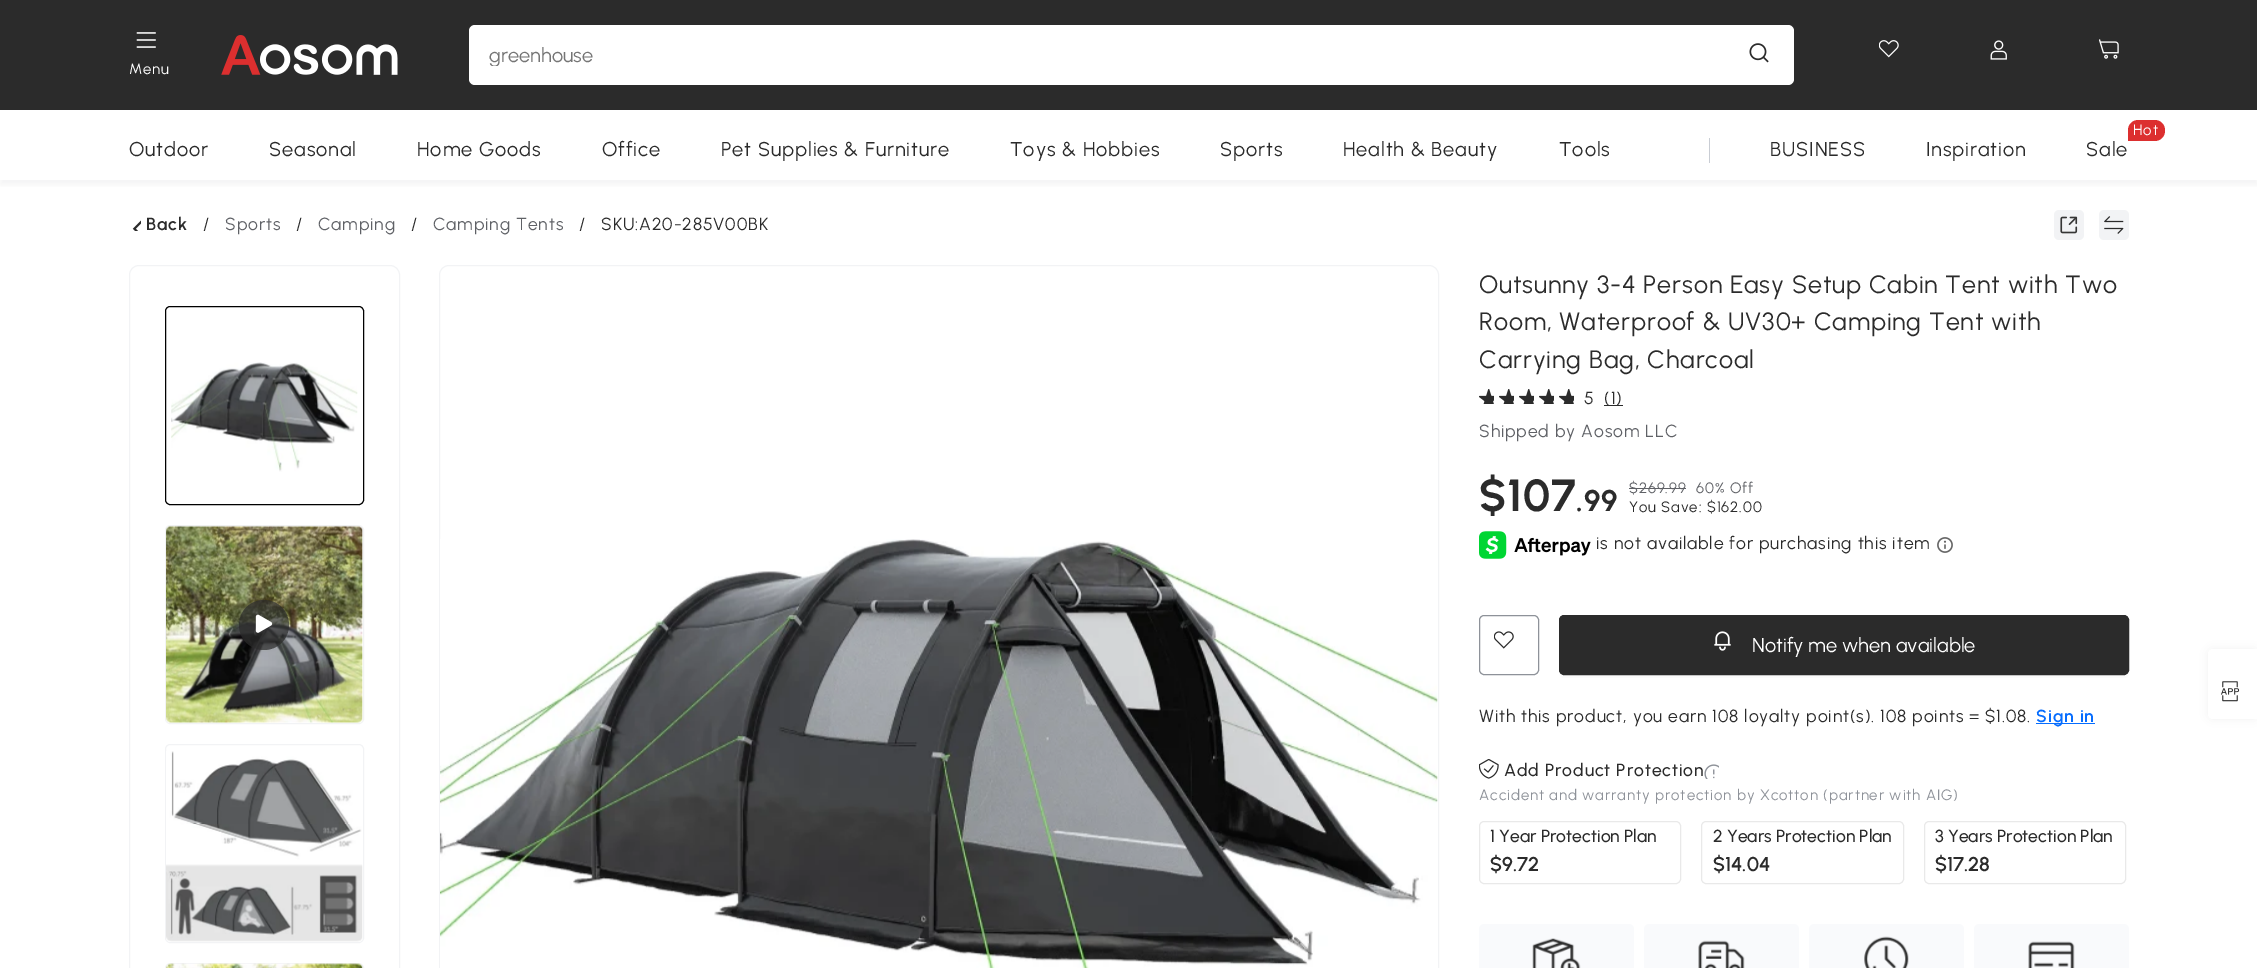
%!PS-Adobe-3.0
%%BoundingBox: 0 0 2257 968
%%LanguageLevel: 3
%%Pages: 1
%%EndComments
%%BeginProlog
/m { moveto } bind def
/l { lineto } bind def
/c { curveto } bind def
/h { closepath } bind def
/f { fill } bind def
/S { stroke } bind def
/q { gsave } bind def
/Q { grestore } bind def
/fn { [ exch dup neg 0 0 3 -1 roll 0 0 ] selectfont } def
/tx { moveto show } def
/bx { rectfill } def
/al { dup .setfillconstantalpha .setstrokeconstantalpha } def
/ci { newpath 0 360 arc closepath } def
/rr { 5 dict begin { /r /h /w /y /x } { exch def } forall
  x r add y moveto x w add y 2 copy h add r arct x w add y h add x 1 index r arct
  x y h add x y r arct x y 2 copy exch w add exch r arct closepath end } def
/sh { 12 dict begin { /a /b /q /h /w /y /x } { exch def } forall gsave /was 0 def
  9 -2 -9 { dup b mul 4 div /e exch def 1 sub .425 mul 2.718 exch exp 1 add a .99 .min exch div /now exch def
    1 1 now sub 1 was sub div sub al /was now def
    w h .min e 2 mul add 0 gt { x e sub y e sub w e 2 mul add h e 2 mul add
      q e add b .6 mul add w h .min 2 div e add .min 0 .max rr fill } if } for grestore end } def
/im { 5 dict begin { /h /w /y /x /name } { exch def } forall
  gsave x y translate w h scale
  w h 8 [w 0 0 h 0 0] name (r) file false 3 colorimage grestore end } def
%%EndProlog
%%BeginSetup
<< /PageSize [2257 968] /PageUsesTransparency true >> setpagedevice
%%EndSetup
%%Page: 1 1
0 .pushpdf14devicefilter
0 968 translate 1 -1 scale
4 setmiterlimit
1 setgray
0 0 2257 968 bx
q
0 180 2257 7 rectclip
0.557 0.573 0.6 setrgbcolor
0 5 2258 180 0 2.5 0.1 sh
Q
0.169 setgray
0 0 2257 110 bx
1 setgray
469 25 1325 60 6 rr f
q
489 43 1185 23 rectclip
/Urbanist-Regular 20 fn
0.459 setgray
(greenhouse) 489 62 tx
Q
(image0.raw) 1749 43 20 20 im
(image1.raw) 1879 40 20 18 im
(image2.raw) 1990 40 17 20 im
(image3.raw) 2099 39 20 20 im
(image4.raw) 136 32 20 16 im
/Urbanist-Regular 15 fn
129 74 m 0.88 0 (Menu) ashow
(image5.raw) 221 35 177 40 im
/Urbanist-Regular 20 fn
0.169 setgray
129 156 m 0.88 0 (Outdoor) ashow
269 156 m 0.88 0 (Seasonal) ashow
417 156 m 0.88 0 (Home Goods) ashow
602 156 m 0.88 0 (Office) ashow
721 156 m 0.88 0 (Pet Supplies & Furniture) ashow
1010 156 m 0.88 0 (Toys & Hobbies) ashow
1220 156 m 0.88 0 (Sports) ashow
1343 156 m 0.88 0 (Health & Beauty) ashow
1559 156 m 0.88 0 (Tools) ashow
0.788 0.804 0.831 setrgbcolor
1709 138 1 25 bx
0.169 setgray
1770 156 m 0.88 0 (BUSINESS) ashow
1926 156 m 0.88 0 (Inspiration) ashow
0.863 0.184 0.184 setrgbcolor
2138.5 120 m 2154.5 120 l 2160.5 120 2165 124.5 2165 130.5 c 2165 136.5 2160.5 141 2154.5 141 c 2128 141 l 2128 130.5 l 2128 124.5 2132.5 120 2138.5 120 c h f
/Urbanist-Regular 15 fn
1 setgray
2133 135 m 0.88 0 (Hot) ashow
/Urbanist-Regular 20 fn
0.169 setgray
2086 156 m 0.88 0 (Sale) ashow
(image6.raw) 132 220 9 11 im
/Urbanist-SemiBold 17.5 fn
146 230 m 0.88 0 (Back) ashow
/Urbanist-Regular 17.5 fn
203 230 m 0.88 0 (/) ashow
0.373 0.38 0.4 setrgbcolor
225 230 m 0.88 0 (Sports) ashow
0.169 setgray
296 230 m 0.88 0 (/) ashow
0.373 0.38 0.4 setrgbcolor
318 230 m 0.88 0 (Camping) ashow
0.169 setgray
411 230 m 0.88 0 (/) ashow
0.373 0.38 0.4 setrgbcolor
433 230 m 0.88 0 (Camping Tents) ashow
0.169 setgray
579 230 m 0.88 0 (/) ashow
601 230 m 0.88 0 (SKU:A20-285V00BK) ashow
0.949 0.953 0.961 setrgbcolor
2054 210 30 30 5 rr f
(image7.raw) 2060 216 18 18 im
2099 210 30 30 5 rr f
(image8.raw) 2104 216 20 18 im
129.5 265.5 270 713 9.5 rr S
0 setgray
165.5 306.5 198 198 4.5 rr S
(image9.raw) 171 362 187 110 im
0.949 0.953 0.961 setrgbcolor
165.5 525.5 198 198 4.5 rr S
(image10.raw) 166 525 197 198 im
0.7 al
0.169 setgray
264 625 25 ci f
1 al
(image11.raw) 255 614 18 19 im
0.949 0.953 0.961 setrgbcolor
165.5 744.5 198 198 4.5 rr S
(image12.raw) 166 751 197 191 im
165.5 963.5 198 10 4.5 rr S
(image13.raw) 166 963 197 5 im
439.5 265.5 999 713 9.5 rr S
(image14.raw) 440 539 998 429 im
/Urbanist-Regular 25 fn
0.169 setgray
1479 293 m 0.88 0 (Outsunny 3-4 Person Easy Setup Cabin Tent with Two) ashow
1479 330 m 0.88 0 (Room, Waterproof & UV30+ Camping Tent with) ashow
1479 368 m 0.88 0 (Carrying Bag, Charcoal) ashow
(image15.raw) 1479 389 15 15 im
(image15.raw) 1499 389 15 15 im
(image15.raw) 1519 389 15 15 im
(image15.raw) 1539 389 15 15 im
(image15.raw) 1559 389 15 15 im
/Urbanist-Regular 17.5 fn
1584 404 m 0.88 0 (5) ashow
1604 404 m 0.88 0 (\(1\)) ashow
1604 405 19 1 bx
0.373 0.38 0.4 setrgbcolor
1479 437 m 0.88 0 (Shipped by Aosom LLC) ashow
/Urbanist-Bold 45 fn
0.169 setgray
1479 511 m 0.88 0 ($107) ashow
/Urbanist-Bold 30 fn
1576 511 m 0.88 0 (.99) ashow
/Urbanist-Regular 15 fn
0.373 0.38 0.4 setrgbcolor
1629 493 m 0.88 0 ($269.99) ashow
1629 488 57 1 bx
1696 493 m 0.88 0 (60% Off) ashow
0.169 setgray
1629 512 m 0.88 0 (You Save: $162.00) ashow
(image16.raw) 1479 531 112 28 im
/Urbanist-Regular 17.5 fn
1596 549 m 0.88 0 (is not available for purchasing this item) ashow
(image17.raw) 1937 537 16 16 im
0.557 0.573 0.6 setrgbcolor
1479.5 615.5 59 59 4.5 rr S
(image18.raw) 1494 631 20 18 im
0.984 setgray
1559 672 m 1559 674 1560 677 1563 678 c 2124 678 l 2131 678 2129 668 2129 665 c 2129 621 l 2129 670 l 2129 673 2127 675 2124 675 c 1564 675 l 1562 675 1560 674 1559 672 c h f
0.169 setgray
1559.5 615.5 569 59 4.5 rr q f Q
S
(image19.raw) 1714 631 17 20 im
/Urbanist-Regular 20 fn
1 setgray
(Notify me when available) 1752 652 tx
/Urbanist-Regular 17.5 fn
0.169 setgray
1479 722 m 0.88 0 (With this product, you earn 108 loyalty point\(s\). 108 points = $1.08.) ashow
0.024 0.427 1 setrgbcolor
2036 723 59 1 bx
/Urbanist-SemiBold 17.5 fn
2036 722 m 0.88 0 (Sign in) ashow
(image20.raw) 1479 759 20 20 im
/Urbanist-Medium 17.5 fn
0.169 setgray
1504 776 m 0.88 0 (Add Product Protection) ashow
(image21.raw) 1704 764 15 15 im
/Urbanist-Regular 15 fn
0.557 0.573 0.6 setrgbcolor
1479 800 m 0.88 0 (Accident and warranty protection by Xcotton \(partner with AIG\)) ashow
0.914 setgray
1479.5 821.5 201 62 4.5 rr S
/Urbanist-Medium 17.5 fn
0.169 setgray
(1 Year Protection Plan) 1490 842 tx
/Urbanist-SemiBold 20 fn
($9.72) 1490 871 tx
0.914 setgray
1701.5 821.5 202 62 4.5 rr S
/Urbanist-Medium 17.5 fn
0.169 setgray
(2 Years Protection Plan) 1713 842 tx
/Urbanist-SemiBold 20 fn
($14.04) 1713 871 tx
0.914 setgray
1924.5 821.5 201 62 4.5 rr S
/Urbanist-Medium 17.5 fn
0.169 setgray
(3 Years Protection Plan) 1935 842 tx
/Urbanist-SemiBold 20 fn
($17.28) 1935 871 tx
0.976 0.98 0.988 setrgbcolor
1479 924 155 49 5 rr f
(image22.raw) 1532 938 49 30 im
1644 924 155 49 5 rr f
(image23.raw) 1698 940 47 28 im
1809 924 155 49 5 rr f
(image24.raw) 1864 936 45 32 im
1974 924 155 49 5 rr f
(image25.raw) 2028 941 47 27 im
0 setgray
2208 649 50 70 5 5 0.05 sh
1 setgray
2213 649 m 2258 649 l 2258 719 l 2213 719 l 2210 719 2208 717 2208 714 c 2208 654 l 2208 651 2210 649 2213 649 c h f
(image26.raw) 2221 681 19 21 im
.poppdf14devicefilter showpage
%%EOF
